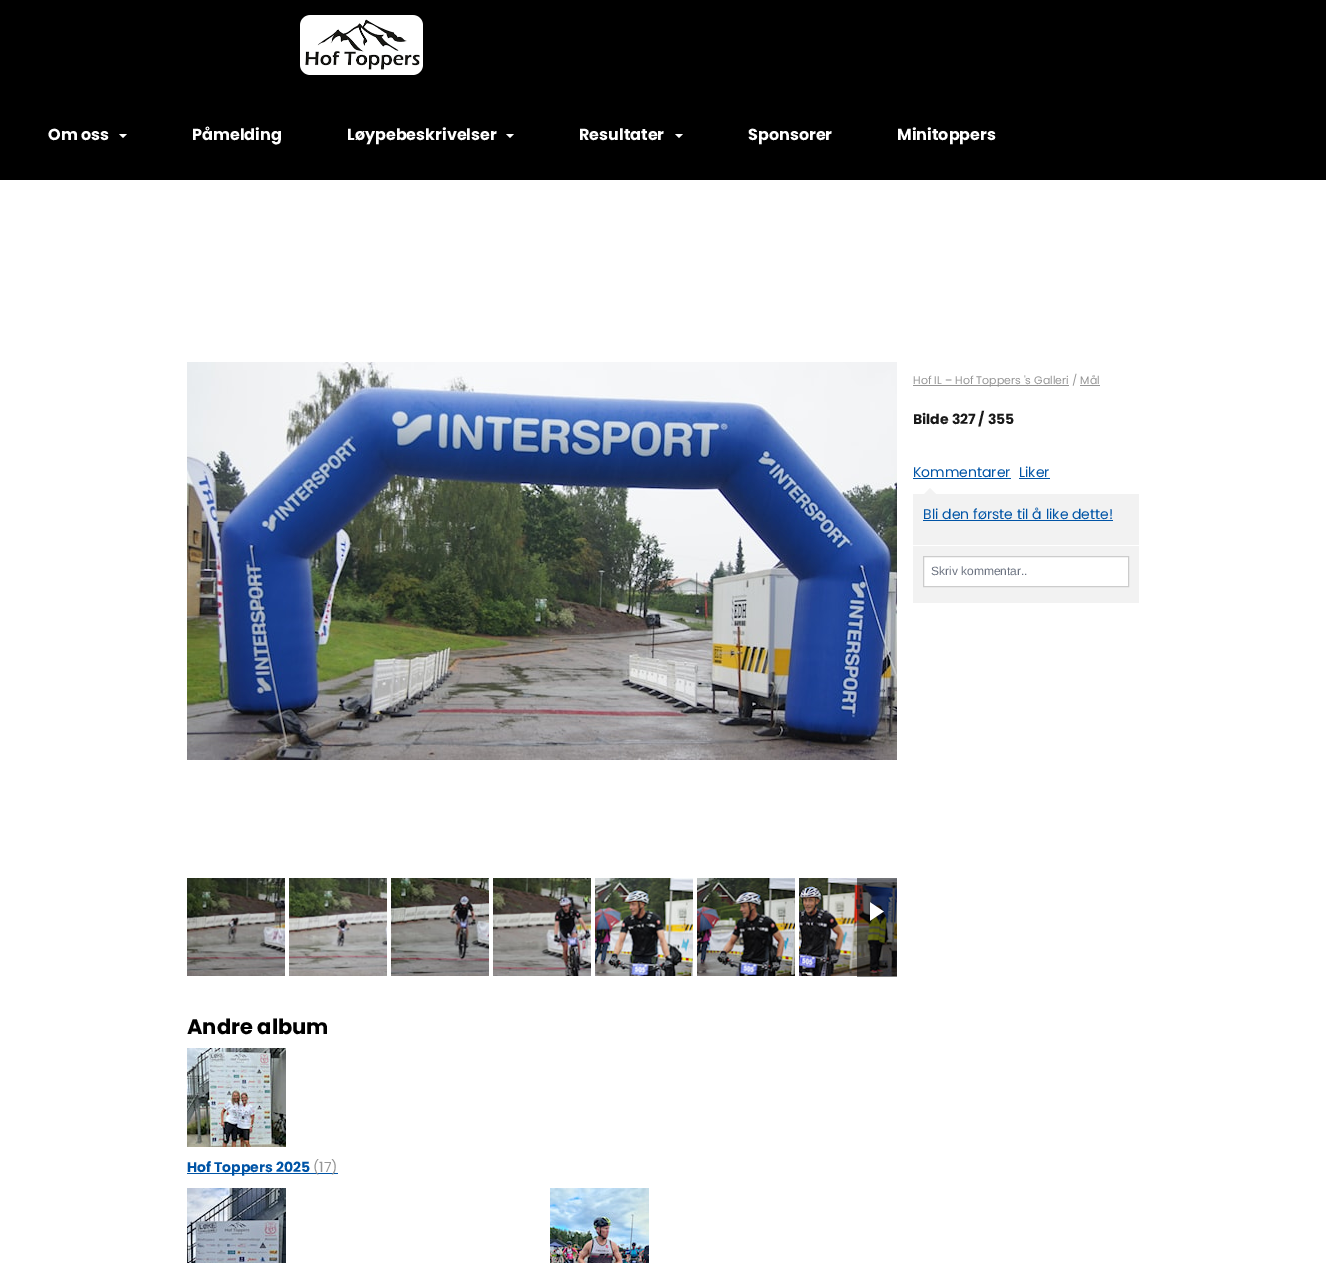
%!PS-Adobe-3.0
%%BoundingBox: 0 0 1326 1263
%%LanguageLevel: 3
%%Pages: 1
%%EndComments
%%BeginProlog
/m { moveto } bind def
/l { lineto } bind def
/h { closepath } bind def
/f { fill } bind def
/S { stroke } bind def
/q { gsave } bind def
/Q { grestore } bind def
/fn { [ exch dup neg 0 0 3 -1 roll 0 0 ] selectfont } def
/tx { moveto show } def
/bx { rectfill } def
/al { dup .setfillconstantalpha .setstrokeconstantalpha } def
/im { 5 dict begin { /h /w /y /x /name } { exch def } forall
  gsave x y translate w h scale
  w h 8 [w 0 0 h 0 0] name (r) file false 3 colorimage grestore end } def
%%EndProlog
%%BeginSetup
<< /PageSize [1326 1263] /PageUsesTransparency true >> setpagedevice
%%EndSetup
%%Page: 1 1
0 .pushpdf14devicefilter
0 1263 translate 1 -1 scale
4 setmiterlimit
1 setgray
0 0 1326 1263 bx
0 setgray
0 0 1326 180 bx
(image0.raw) 300 15 123 60 im
/Poppins-Bold 16 fn
1 setgray
(Om oss) 48 140 tx
119 134 m 127 134 l 123 138 l h f
(Påmelding) 192 140 tx
(Løypebeskrivelser) 347 140 tx
506 134 m 514 134 l 510 138 l h f
(Resultater) 579 140 tx
675 134 m 683 134 l 679 138 l h f
(Sponsorer) 748 140 tx
(Minitoppers) 897 140 tx
0.584 setgray
913 385 156 1 bx
/Poppins-Regular 11 fn
(Hof IL – Hof Toppers 's Galleri / Mål) 913 384 tx
1080 385 20 1 bx
/Poppins-Bold 14 fn
0.098 setgray
(Bilde 327 / 355) 913 424 tx
/Poppins-Regular 14 fn
0 0.329 0.651 setrgbcolor
(Kommentarer) 913 477 tx
913 478 98 1 bx
(Liker) 1019 477 tx
1019 478 31 1 bx
(image1.raw) 924 488 12 6 im
0.949 setgray
913 494 226 51 bx
0 0.329 0.651 setrgbcolor
(Bli den første til å like dette!) 923 519 tx
923 520 190 1 bx
0.949 setgray
913 546 226 57 bx
1 setgray
923.5 556.5 m 1128.5 556.5 l 1128.5 586.5 l 923.5 586.5 l h q f Q
0.8 setgray
S
/LiberationSans-Regular 12 fn
0.42 0.447 0.502 setrgbcolor
(Skriv kommentar..) 931 575 tx
(image2.raw) 187 362 710 398 im
(image3.raw) 187 878 98 98 im
(image4.raw) 289 878 98 98 im
(image5.raw) 391 878 98 98 im
(image6.raw) 493 878 98 98 im
(image7.raw) 595 878 98 98 im
(image8.raw) 697 878 98 98 im
(image9.raw) 799 878 98 98 im
0.5 al
0 setgray
857 878 40 99 bx
1 al
(image10.raw) 869 901 16 20 im
/Poppins-Bold 21 fn
(Andre album) 187 1034 tx
(image11.raw) 187 1048 99 99 im
0 0.329 0.651 setrgbcolor
187 1173 151 1 bx
/Poppins-Bold 14 fn
(Hof Toppers 2025) 187 1172 tx
/Poppins-Regular 14 fn
0.584 setgray
(\(17\)) 313 1172 tx
(image12.raw) 187 1188 99 75 im
(image13.raw) 550 1188 99 75 im
.poppdf14devicefilter showpage
%%EOF
